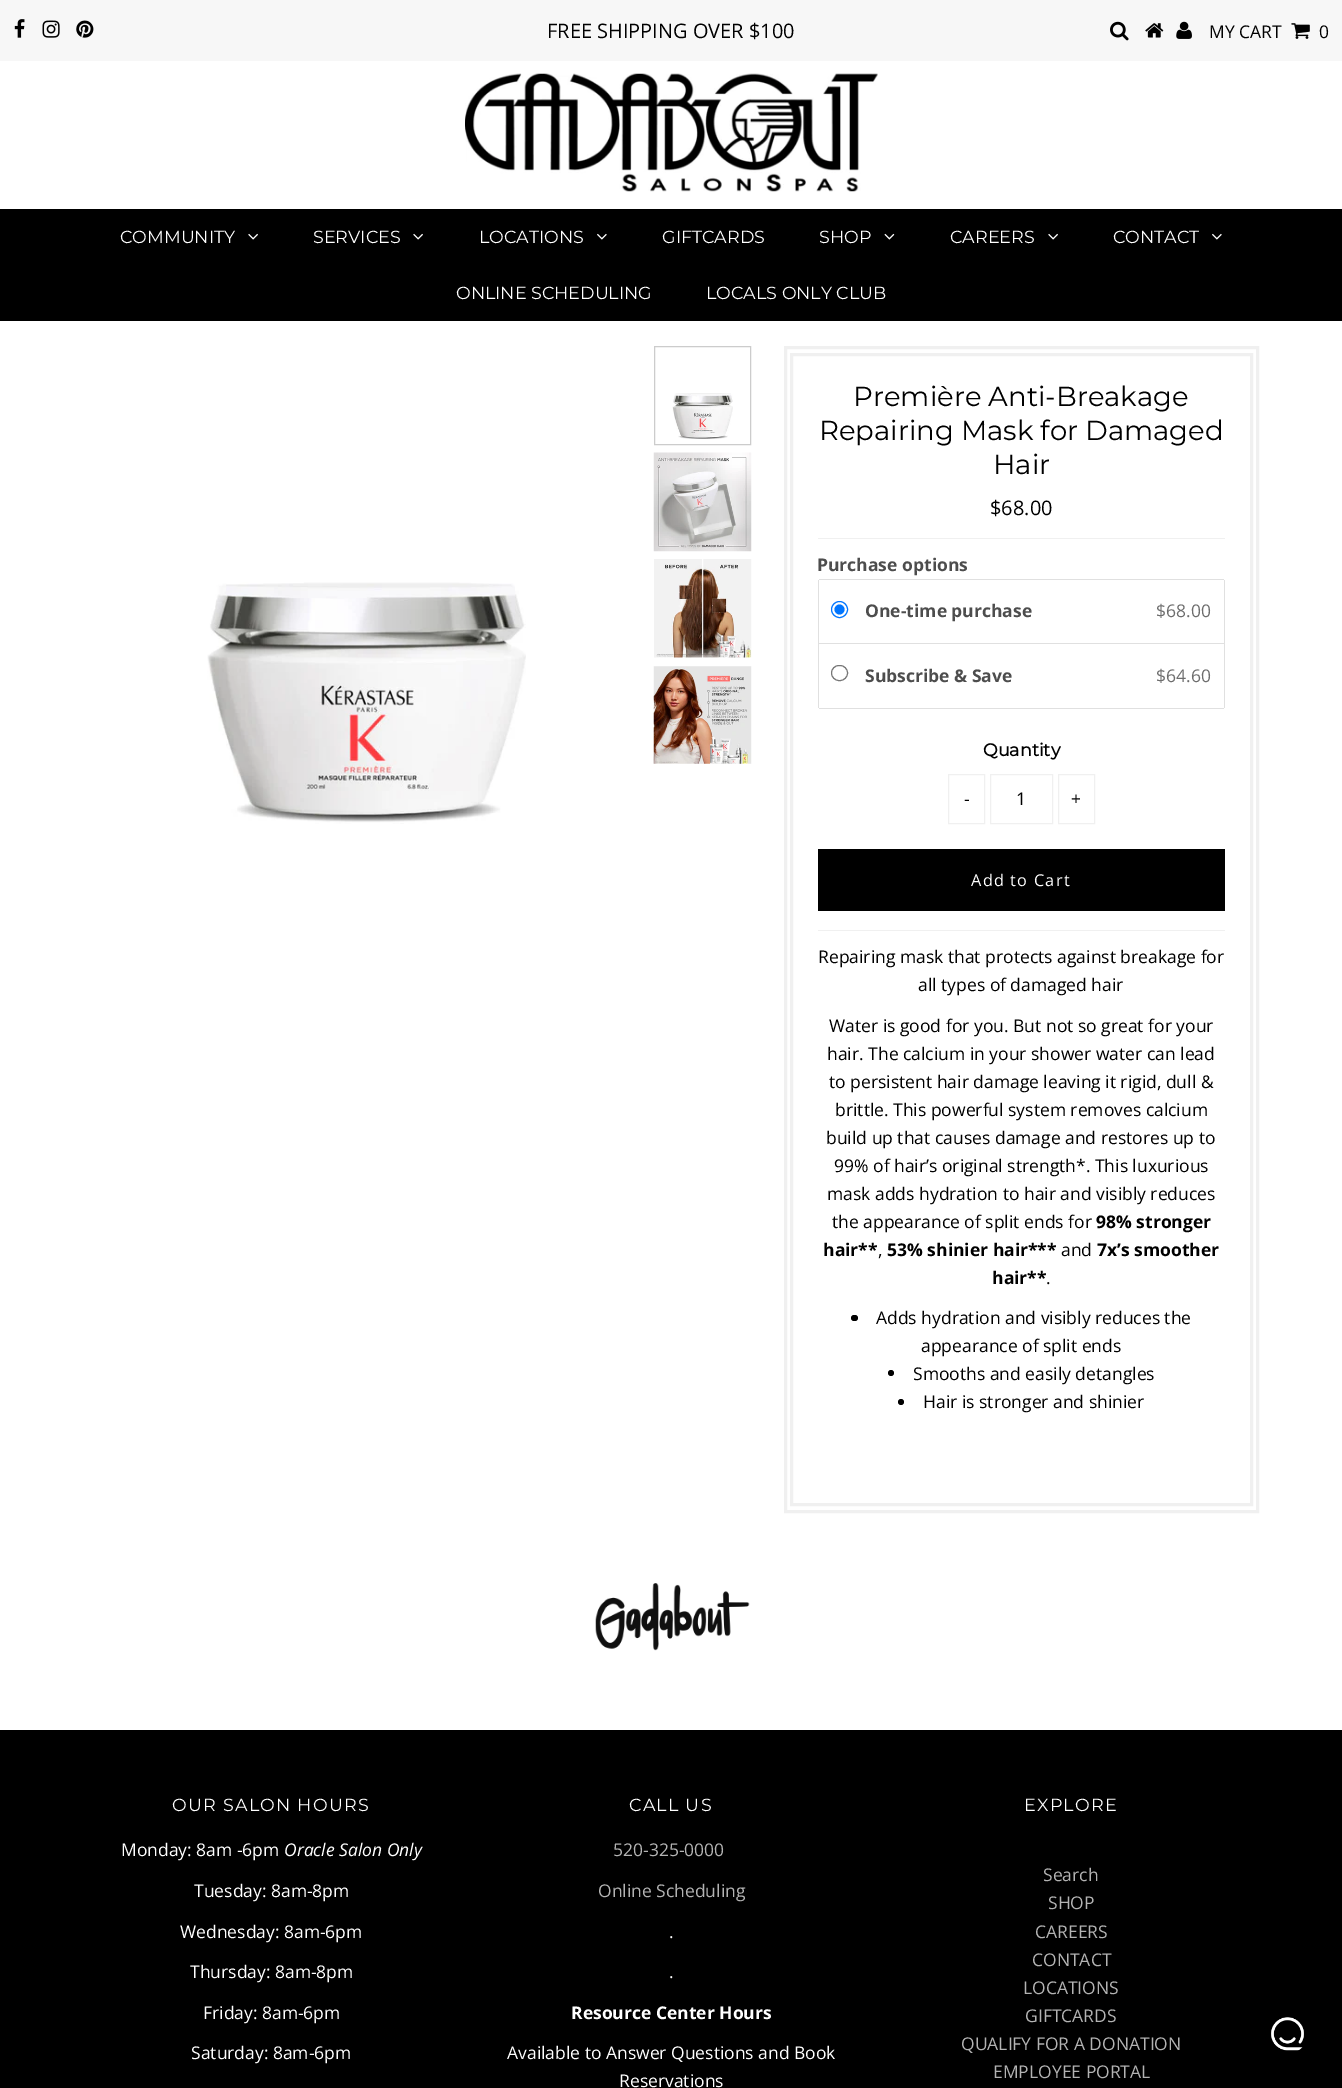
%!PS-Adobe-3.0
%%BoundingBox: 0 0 1342 2088
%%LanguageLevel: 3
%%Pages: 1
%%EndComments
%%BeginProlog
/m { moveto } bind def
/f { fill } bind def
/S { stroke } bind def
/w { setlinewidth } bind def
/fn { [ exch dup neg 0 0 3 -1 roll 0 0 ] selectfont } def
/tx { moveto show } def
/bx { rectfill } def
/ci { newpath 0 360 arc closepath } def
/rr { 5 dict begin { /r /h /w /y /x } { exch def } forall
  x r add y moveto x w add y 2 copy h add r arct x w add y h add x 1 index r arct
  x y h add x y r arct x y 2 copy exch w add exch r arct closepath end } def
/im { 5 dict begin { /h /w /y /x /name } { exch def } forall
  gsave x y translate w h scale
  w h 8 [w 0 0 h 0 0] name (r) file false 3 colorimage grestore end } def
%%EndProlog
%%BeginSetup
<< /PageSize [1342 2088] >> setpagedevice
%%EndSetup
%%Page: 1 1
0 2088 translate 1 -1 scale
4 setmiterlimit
1 setgray
0 0 1342 2088 bx
0.969 setgray
0 0 1342 61 bx
(image0.raw) 14 19 11 19 im
(image1.raw) 42 20 18 18 im
(image2.raw) 76 20 18 18 im
/OpenSans-Regular 20 fn
0 setgray
(FREE SHIPPING OVER $100) 547 38 tx
(image3.raw) 1110 21 19 20 im
(image4.raw) 1145 23 19 15 im
(image5.raw) 1176 21 16 18 im
/OpenSans-Regular 17.5 fn
(MY CART) 1209 38 tx
(image6.raw) 1291 23 19 16 im
(0) 1319 38 tx
(image7.raw) 465 73 413 119 im
0 209 1342 112 bx
/Montserrat-Regular 17.5 fn
1 setgray
(COMMUNITY) 120 243 tx
(image8.raw) 248 233 10 7 im
(SERVICES) 313 243 tx
(image8.raw) 413 233 10 7 im
(LOCATIONS) 479 243 tx
(image9.raw) 597 233 10 7 im
(GIFTCARDS) 662 243 tx
(SHOP) 819 243 tx
(image10.raw) 884 233 11 7 im
(CAREERS) 950 243 tx
(image8.raw) 1048 233 10 7 im
(CONTACT) 1113 243 tx
(image9.raw) 1212 233 10 7 im
(ONLINE SCHEDULING) 456 299 tx
(LOCALS ONLY CLUB) 706 299 tx
(image11.raw) 207 582 319 242 im
0.8 setgray
654.5 346.5 96 98 rectstroke
(image12.raw) 672 393 61 46 im
(image13.raw) 653 452 99 100 im
(image14.raw) 654 559 98 99 im
(image15.raw) 653 666 99 98 im
0.941 setgray
3 w
785.5 347.5 472 1164 rectstroke
791.5 354.5 460 1150 rectstroke
/Montserrat-Regular 27.5 fn
0 setgray
(Première Anti-Breakage) 853 406 tx
(Repairing Mask for Damaged) 819 440 tx
(Hair) 993 474 tx
0.941 setgray
818 930 407 1 bx
818 538 407 1 bx
/OpenSans-Regular 20 fn
0 setgray
($68.00) 990 515 tx
/OpenSans-Bold 17.5 fn
0.302 setgray
(Purchase options) 817 571 tx
0.878 setgray
819 579 405 1 bx
1224 580 1 128 bx
818 580 1 128 bx
819 643 405 1 bx
0 0.459 1 setrgbcolor
1 w
839.5 609.5 8 ci S
839.5 609.5 5 ci f
0.302 setgray
(One-time purchase) 865 617 tx
/OpenSans-Regular 17.5 fn
0.427 setgray
($68.00) 1156 617 tx
0.878 setgray
819 708 405 1 bx
0.463 setgray
831.5 665.5 16 15 7.5 rr S
/OpenSans-Bold 17.5 fn
0.302 setgray
(Subscribe & Save) 865 682 tx
/OpenSans-Regular 17.5 fn
0.427 setgray
($64.60) 1156 682 tx
/Montserrat-Bold 17.5 fn
0 setgray
(Quantity) 983 756 tx
0.941 setgray
948.5 774.5 36 49 rectstroke
/OpenSans-Regular 17.5 fn
0 setgray
(-) 964 805 tx
0.941 setgray
990.5 774.5 62 49 rectstroke
0 setgray
(1) 1016 805 tx
0.941 setgray
1058.5 774.5 36 49 rectstroke
0 setgray
(+) 1071 805 tx
818 849 407 62 bx
/OpenSans-Regular 16.25 fn
1 setgray
971 886 m 1.25 0 (Add to Cart) ashow
/OpenSans-Regular 17.5 fn
0 setgray
(Repairing mask that protects against breakage for) 818 963 tx
(all types of damaged hair) 918 991 tx
(Water is good for you. But not so great for your) 829 1032 tx
(hair. The calcium in your shower water can lead) 827 1060 tx
(to persistent hair damage leaving it rigid, dull &) 829 1088 tx
(brittle. This powerful system removes calcium) 835 1116 tx
(build up that causes damage and restores up to) 826 1144 tx
(99% of hair’s original strength*. This luxurious) 834 1172 tx
(mask adds hydration to hair and visibly reduces) 827 1200 tx
(the appearance of split ends for) 832 1228 tx
/OpenSans-Bold 17.5 fn
(98% stronger) 1096 1228 tx
(hair**) 823 1256 tx
/OpenSans-Regular 17.5 fn
(,) 878 1256 tx
/OpenSans-Bold 17.5 fn
(53% shinier hair***) 887 1256 tx
/OpenSans-Regular 17.5 fn
(and) 1061 1256 tx
/OpenSans-Bold 17.5 fn
(7x’s smoother) 1097 1256 tx
(hair**) 992 1284 tx
/OpenSans-Regular 17.5 fn
(.) 1046 1284 tx
851 1315 7 6 3 rr f
(Adds hydration and visibly reduces the) 876 1324 tx
(appearance of split ends) 921 1352 tx
891 1373 3 ci f
(Smooths and easily detangles) 913 1380 tx
901 1402 3 ci f
(Hair is stronger and shinier) 923 1408 tx
(image16.raw) 595 1583 155 68 im
0 1730 1342 358 bx
/Montserrat-Regular 17.5 fn
1 setgray
172 1811 m 1.25 0 (OUR SALON HOURS) ashow
/OpenSans-Regular 17.5 fn
(Monday: 8am -6pm) 121 1856 tx
/OpenSans-Italic 17.5 fn
(Oracle Salon Only) 284 1856 tx
/OpenSans-Regular 17.5 fn
(Tuesday: 8am-8pm) 194 1897 tx
(Wednesday: 8am-6pm) 180 1938 tx
(Thursday: 8am-8pm) 190 1978 tx
(Friday: 8am-6pm) 203 2019 tx
(Saturday: 8am-6pm) 191 2059 tx
/Montserrat-Regular 17.5 fn
629 1811 m 1.25 0 (CALL US) ashow
/OpenSans-Regular 17.5 fn
0.702 setgray
(520-325-0000) 613 1856 tx
(Online Scheduling) 598 1897 tx
1 setgray
(.) 669 1938 tx
(.) 669 1978 tx
/OpenSans-Bold 17.5 fn
(Resource Center Hours) 571 2019 tx
/OpenSans-Regular 17.5 fn
(Available to Answer Questions and Book) 507 2059 tx
(Reservations) 619 2087 tx
/Montserrat-Regular 17.5 fn
1024 1811 m 1.25 0 (EXPLORE) ashow
/OpenSans-Regular 17.5 fn
0.702 setgray
(Search) 1043 1881 tx
(SHOP) 1048 1909 tx
(CAREERS) 1035 1938 tx
(CONTACT) 1032 1966 tx
(LOCATIONS) 1023 1994 tx
(GIFTCARDS) 1025 2022 tx
(QUALIFY FOR A DONATION) 961 2050 tx
(EMPLOYEE PORTAL) 993 2078 tx
(image17.raw) 1271 2017 33 34 im
showpage
%%EOF
